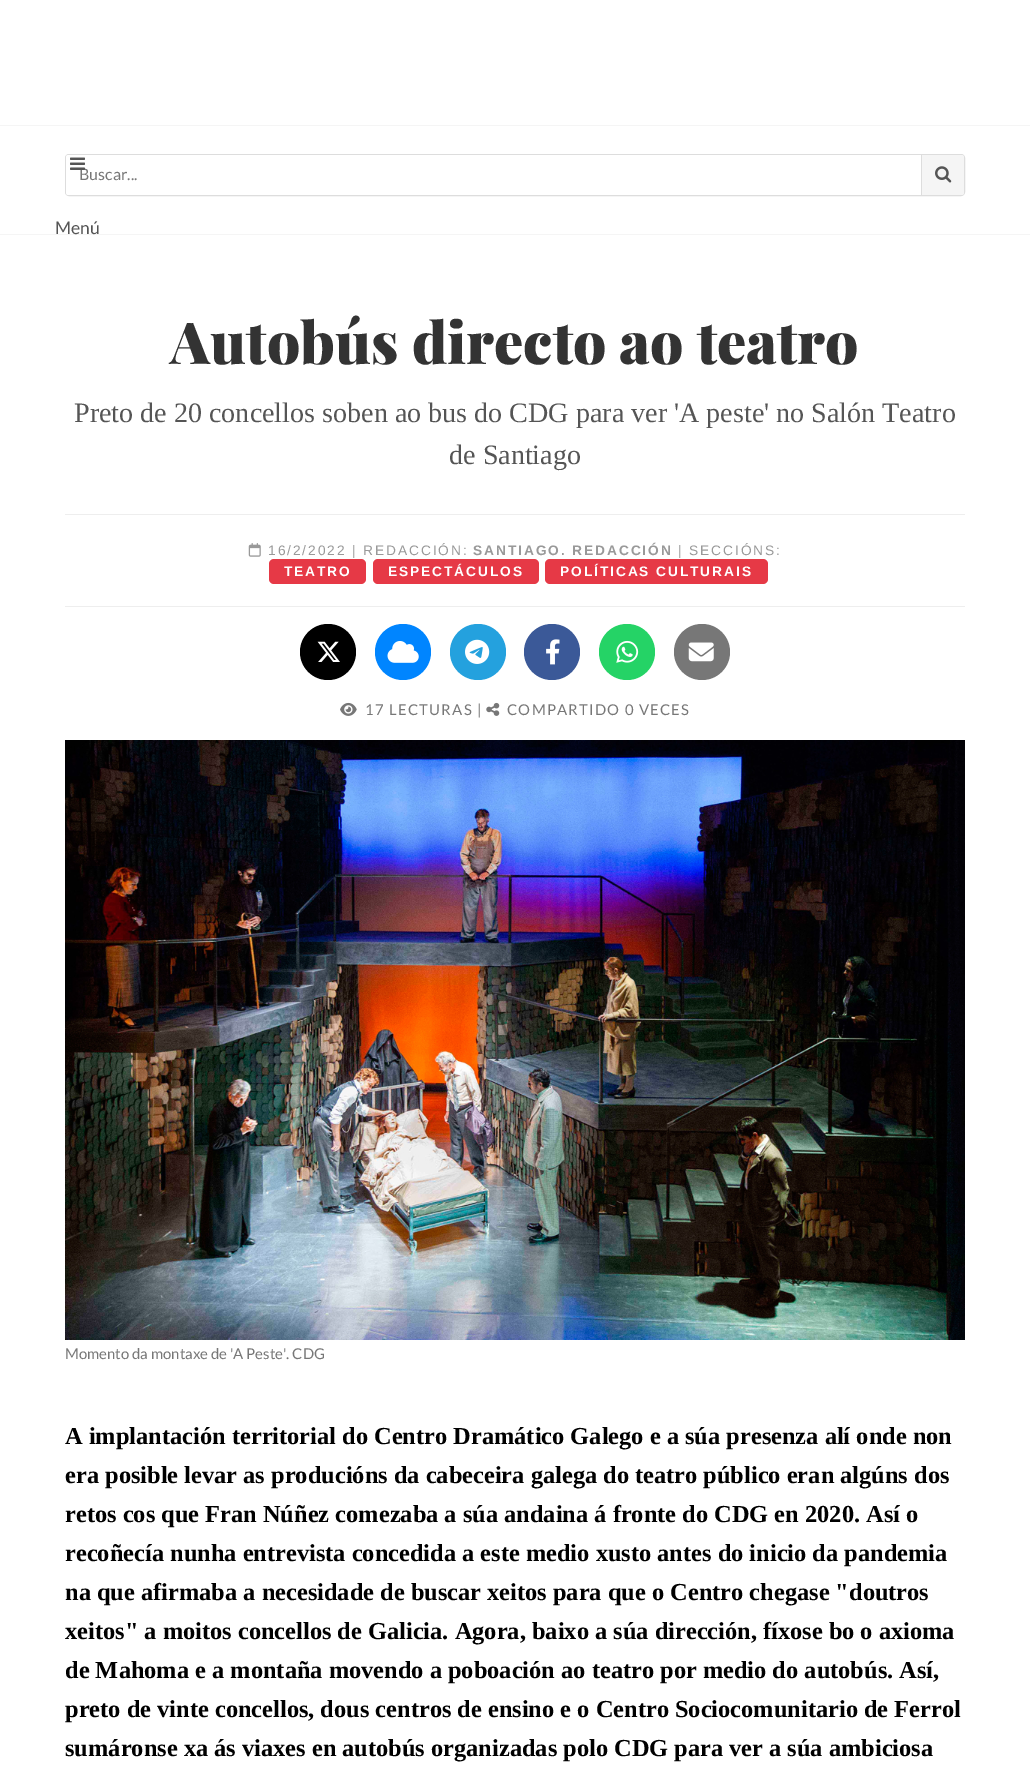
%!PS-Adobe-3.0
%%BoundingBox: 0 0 1030 1774
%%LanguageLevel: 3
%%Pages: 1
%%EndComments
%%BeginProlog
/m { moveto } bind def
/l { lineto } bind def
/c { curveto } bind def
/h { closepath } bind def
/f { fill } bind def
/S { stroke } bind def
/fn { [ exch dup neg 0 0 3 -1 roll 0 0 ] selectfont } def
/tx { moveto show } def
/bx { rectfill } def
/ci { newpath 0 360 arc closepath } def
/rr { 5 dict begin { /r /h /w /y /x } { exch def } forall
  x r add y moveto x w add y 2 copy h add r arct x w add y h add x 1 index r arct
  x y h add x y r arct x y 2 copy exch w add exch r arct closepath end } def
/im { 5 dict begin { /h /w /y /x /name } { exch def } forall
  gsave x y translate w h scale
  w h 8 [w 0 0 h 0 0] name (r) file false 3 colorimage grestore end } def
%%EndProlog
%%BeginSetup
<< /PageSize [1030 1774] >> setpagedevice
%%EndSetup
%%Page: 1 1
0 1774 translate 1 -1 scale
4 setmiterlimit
1 setgray
0 0 1030 1774 bx
0.961 setgray
0 234 1030 1 bx
0 125 1030 1 bx
0.867 setgray
65.5 154.5 899 41 3.5 rr S
1 setgray
68.5 155 m 921 155 l 921 195 l 68.5 195 l 67 195 66 194 66 192.5 c 66 157.5 l 66 156 67 155 68.5 155 c h f
/Lato-Regular 16 fn
0.467 setgray
(Buscar...) 79 180 tx
0.961 setgray
921 155 m 961.5 155 l 963 155 964 156 964 157.5 c 964 192.5 l 964 194 963 195 961.5 195 c 921 195 l h f
0.867 setgray
921 155 1 40 bx
(image0.raw) 935 166 17 17 im
(image1.raw) 70 157 15 13 im
/Lato-Regular 17.5 fn
0.333 setgray
(Menú) 55 234 tx
/PlayfairDisplay-Black 58.1 fn
0.2 setgray
(Autobús directo ao teatro) 170 364 tx
/LiberationSerif-Regular 28.1 fn
0.333 setgray
(Preto de 20 concellos soben ao bus do CDG para ver 'A peste' no Salón Teatro) 74 422 tx
(de Santiago) 449 464 tx
0.933 setgray
65 514 900 1 bx
65 606 900 1 bx
(image2.raw) 248 543 13 14 im
/LiberationSans-Regular 13.75 fn
0.6 setgray
268 555 m 1.9 0 (16/2/2022 | REDACCIÓN:) ashow
/LiberationSans-Bold 13.75 fn
473 555 m 1.9 0 (SANTIAGO. REDACCIÓN) ashow
/LiberationSans-Regular 13.75 fn
678 555 m 1.9 0 (| SECCIÓNS:) ashow
0.902 0.224 0.275 setrgbcolor
269 559 97 25 5 rr f
/LiberationSans-Bold 13.75 fn
1 setgray
284 576 m 1.9 0 (TEATRO) ashow
0.902 0.224 0.275 setrgbcolor
373 559 166 25 5 rr f
1 setgray
388 576 m 1.9 0 (ESPECTÁCULOS) ashow
0.902 0.224 0.275 setrgbcolor
545 559 223 25 5 rr f
1 setgray
560 576 m 1.9 0 (POLÍTICAS CULTURAIS) ashow
0 setgray
328 652 28 ci f
(image3.raw) 317 641 23 21 im
0 0.522 1 setrgbcolor
403 652 28 ci f
(image4.raw) 387 641 32 22 im
0.141 0.631 0.871 setrgbcolor
478 652 28 ci f
(image5.raw) 465 639 25 25 im
0.231 0.349 0.596 setrgbcolor
552 652 28 ci f
(image6.raw) 546 639 14 26 im
0.145 0.827 0.4 setrgbcolor
627 652 28 ci f
(image7.raw) 616 640 23 23 im
0.467 setgray
702 652 28 ci f
(image8.raw) 688 642 26 20 im
(image9.raw) 340 702 17 14 im
/Lato-Regular 14.9 fn
365 715 m 1.25 0 (17 LECTURAS |) ashow
(image10.raw) 486 702 14 14 im
507 715 m 1.25 0 (COMPARTIDO 0 VECES) ashow
(image11.raw) 65 740 900 600 im
(Momento da montaxe de 'A Peste'. CDG) 65 1359 tx
/LiberationSerif-Bold 24.4 fn
0 setgray
(A implantación territorial do Centro Dramático Galego e a súa presenza alí onde non) 65 1444 tx
(era posible levar as producións da cabeceira galega do teatro público eran algúns dos) 65 1483 tx
(retos cos que Fran Núñez comezaba a súa andaina á fronte do CDG en 2020. Así o) 65 1522 tx
(recoñecía nunha entrevista concedida a este medio xusto antes do inicio da pandemia) 65 1561 tx
(na que afirmaba a necesidade de buscar xeitos para que o Centro chegase "doutros) 65 1600 tx
(xeitos" a moitos concellos de Galicia. Agora, baixo a súa dirección, fíxose bo o axioma) 65 1639 tx
(de Mahoma e a montaña movendo a poboación ao teatro por medio do autobús. Así,) 65 1678 tx
(preto de vinte concellos, dous centros de ensino e o Centro Sociocomunitario de Ferrol) 65 1717 tx
(sumáronse xa ás viaxes en autobús organizadas polo CDG para ver a súa ambiciosa) 65 1756 tx
showpage
%%EOF
